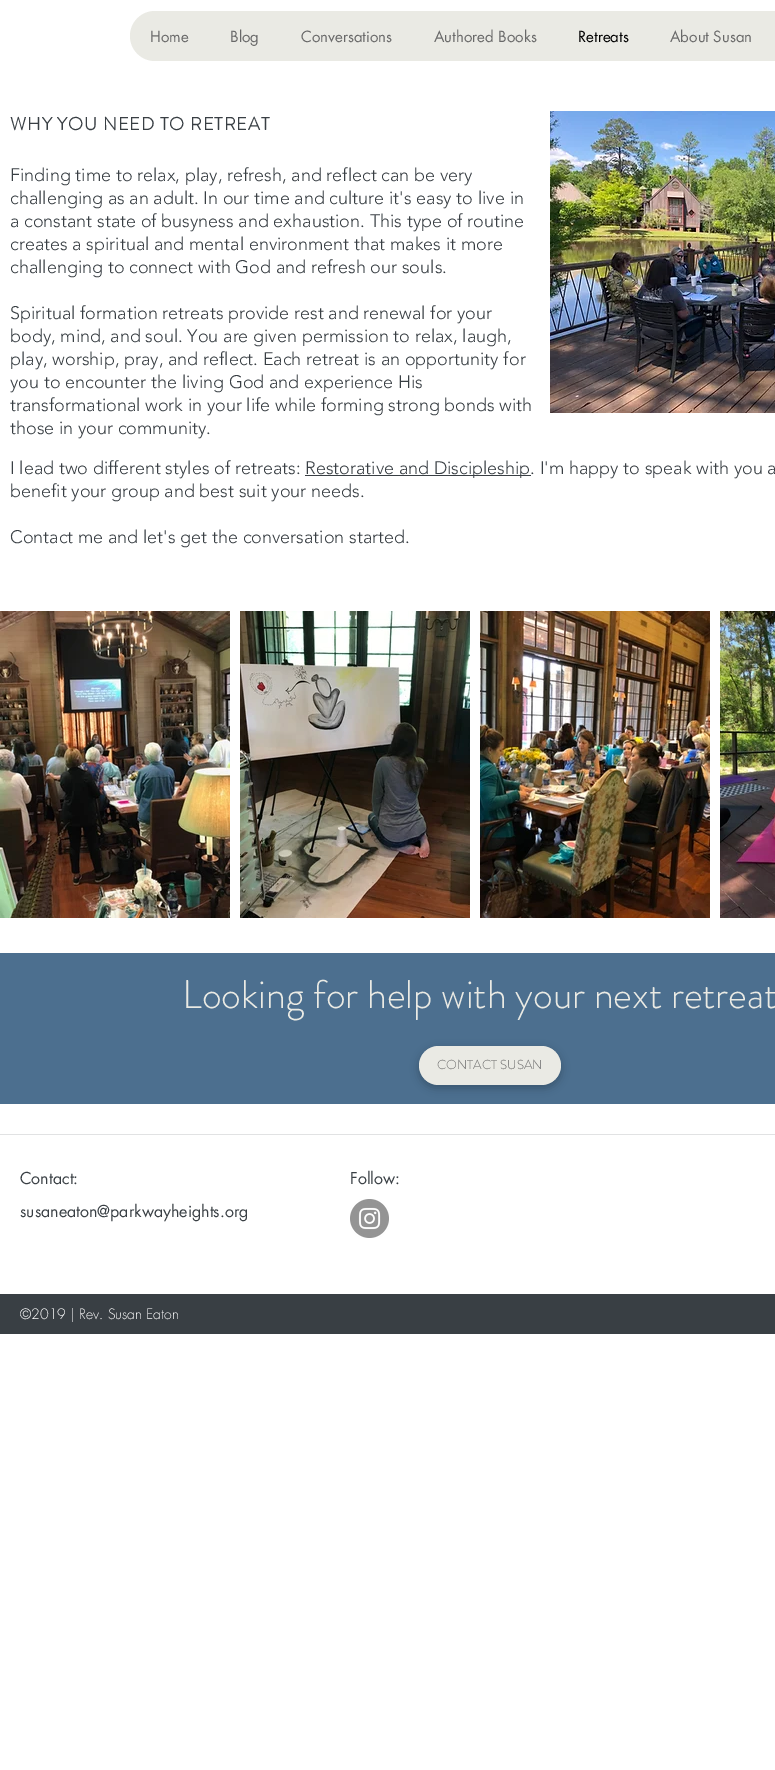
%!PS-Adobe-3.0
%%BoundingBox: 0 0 775 1770
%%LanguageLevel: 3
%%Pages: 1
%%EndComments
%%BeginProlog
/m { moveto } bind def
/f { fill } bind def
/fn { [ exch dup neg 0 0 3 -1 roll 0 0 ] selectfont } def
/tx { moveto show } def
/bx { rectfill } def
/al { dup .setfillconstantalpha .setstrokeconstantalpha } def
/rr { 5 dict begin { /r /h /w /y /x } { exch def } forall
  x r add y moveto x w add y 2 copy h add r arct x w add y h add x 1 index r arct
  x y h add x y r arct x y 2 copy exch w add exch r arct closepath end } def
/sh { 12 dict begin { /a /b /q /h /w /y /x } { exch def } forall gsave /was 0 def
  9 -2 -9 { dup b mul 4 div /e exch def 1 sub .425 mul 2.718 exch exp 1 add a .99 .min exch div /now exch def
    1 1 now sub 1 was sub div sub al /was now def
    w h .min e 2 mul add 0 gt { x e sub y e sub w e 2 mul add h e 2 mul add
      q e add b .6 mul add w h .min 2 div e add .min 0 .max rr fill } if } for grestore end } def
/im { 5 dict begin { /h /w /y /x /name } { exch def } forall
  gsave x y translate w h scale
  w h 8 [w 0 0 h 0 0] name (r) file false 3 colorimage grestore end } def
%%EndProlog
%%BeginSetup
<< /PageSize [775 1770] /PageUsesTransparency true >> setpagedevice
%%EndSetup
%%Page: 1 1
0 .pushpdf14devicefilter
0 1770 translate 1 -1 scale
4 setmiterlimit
1 setgray
0 0 775 1770 bx
0.918 0.918 0.894 setrgbcolor
130 11 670 50 25 rr f
/futura-Regular 15 fn
0.412 setgray
(Home) 150 42 tx
(Blog) 230 42 tx
(Conversations) 301 42 tx
(Authored Books) 434 42 tx
0 setgray
(Retreats) 578 42 tx
0.412 setgray
(About Susan) 670 42 tx
/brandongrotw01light-Bold 18 fn
0.224 0.247 0.267 setrgbcolor
10 130 m 0.9 0 (WHY YOU NEED TO RETREAT) ashow
/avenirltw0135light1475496-Light 18 fn
(Finding time to relax, play, refresh, and reflect can be very) 10 181 tx
(challenging as an adult. In our time and culture it's easy to live in) 10 204 tx
(a constant state of busyness and exhaustion. This type of routine) 10 227 tx
(creates a spiritual and mental environment that makes it more) 10 250 tx
(challenging to connect with God and refresh our souls.) 10 273 tx
(Spiritual formation retreats provide rest and renewal for your) 10 319 tx
(body, mind, and soul. You are given permission to relax, laugh,) 10 342 tx
(play, worship, pray, and reflect. Each retreat is an opportunity for) 10 365 tx
(you to encounter the living God and experience His) 10 388 tx
(transformational work in your life while forming strong bonds with) 10 411 tx
(those in your community.) 10 434 tx
(image0.raw) 550 111 225 302 im
(I lead two different styles of retreats:) 10 474 tx
305 475 226 1 bx
(Restorative and Discipleship. I'm happy to speak with you a) 305 474 tx
(benefit your group and best suit your needs.) 10 497 tx
(Contact me and let's get the conversation started.) 10 543 tx
(image1.raw) 0 611 230 307 im
(image2.raw) 240 611 230 307 im
(image3.raw) 480 611 230 307 im
(image4.raw) 720 611 55 307 im
0.298 0.435 0.561 setrgbcolor
0 953 775 151 bx
/brandongrotw01light-Light 40 fn
0.918 0.918 0.894 setrgbcolor
(Looking for help with your next retreat) 182 1008 tx
0 setgray
419 1049 142 39 19.5 4.5 0.23 sh
0.918 0.918 0.894 setrgbcolor
419 1046 142 39 19.5 rr f
/brandongrotw01light-Light 13 fn
0.412 setgray
(CONTACT SUSAN) 437 1069 tx
0.882 0.886 0.89 setrgbcolor
0 1134 775 1 bx
/futura-Regular 16 fn
0.224 0.247 0.267 setrgbcolor
(Contact:) 20 1184 tx
(Follow:) 350 1184 tx
(susaneaton@parkwayheights.org) 20 1217 tx
(image5.raw) 350 1199 39 39 im
0 1294 775 40 bx
/futura-Light 14 fn
1 setgray
(©2019 | Rev. Susan Eaton) 20 1319 tx
.poppdf14devicefilter showpage
%%EOF
